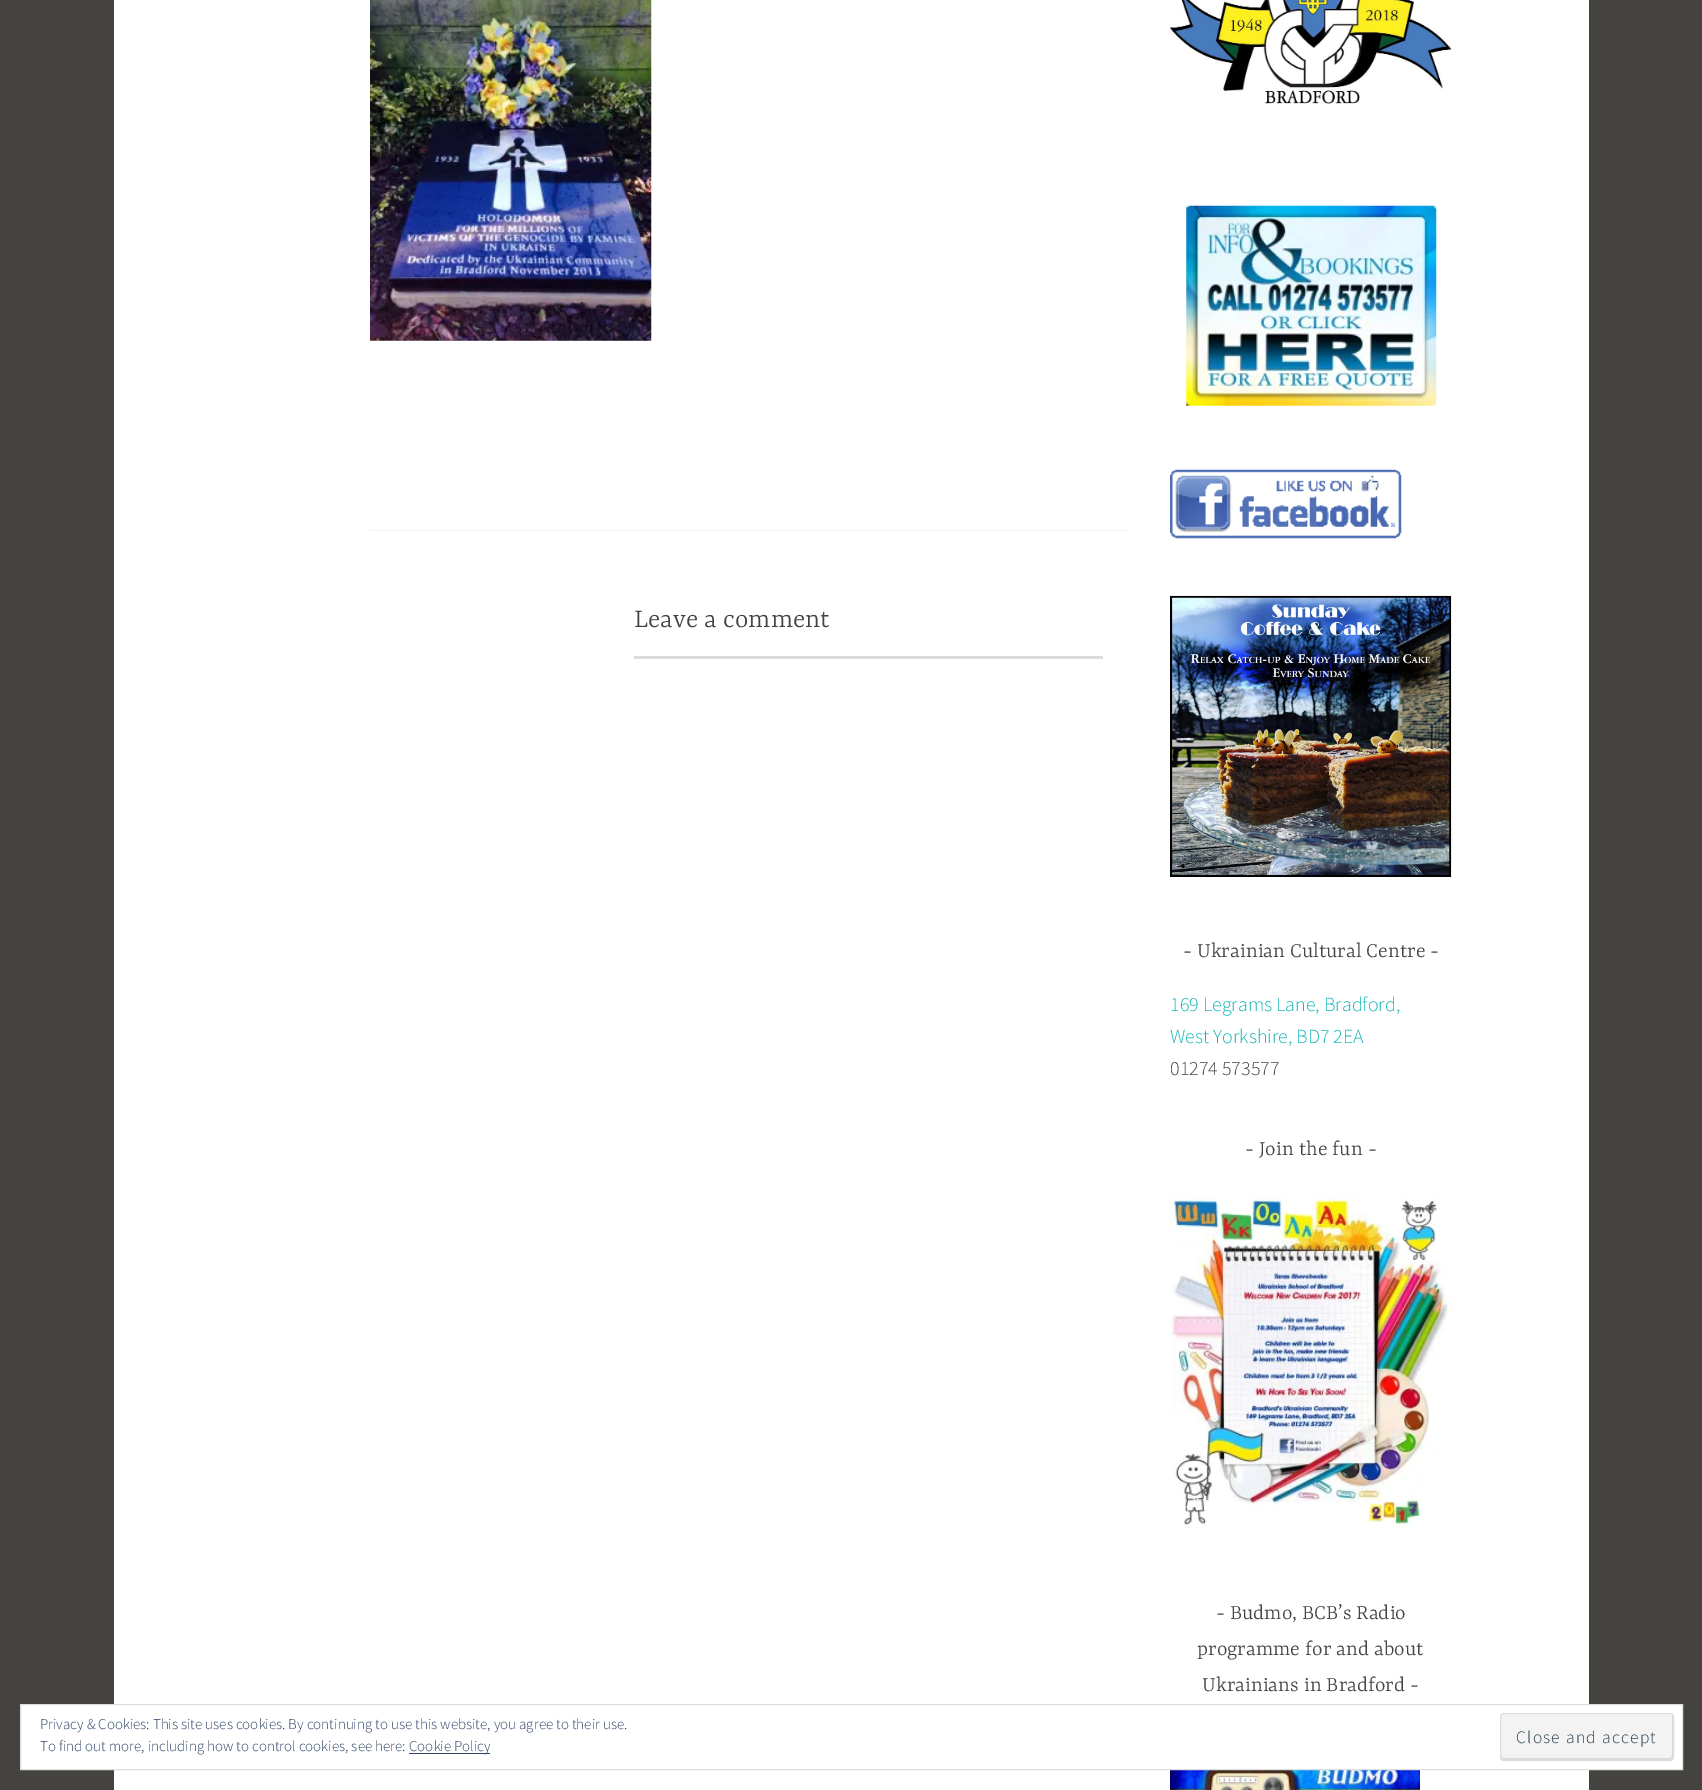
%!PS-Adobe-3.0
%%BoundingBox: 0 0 1702 1790
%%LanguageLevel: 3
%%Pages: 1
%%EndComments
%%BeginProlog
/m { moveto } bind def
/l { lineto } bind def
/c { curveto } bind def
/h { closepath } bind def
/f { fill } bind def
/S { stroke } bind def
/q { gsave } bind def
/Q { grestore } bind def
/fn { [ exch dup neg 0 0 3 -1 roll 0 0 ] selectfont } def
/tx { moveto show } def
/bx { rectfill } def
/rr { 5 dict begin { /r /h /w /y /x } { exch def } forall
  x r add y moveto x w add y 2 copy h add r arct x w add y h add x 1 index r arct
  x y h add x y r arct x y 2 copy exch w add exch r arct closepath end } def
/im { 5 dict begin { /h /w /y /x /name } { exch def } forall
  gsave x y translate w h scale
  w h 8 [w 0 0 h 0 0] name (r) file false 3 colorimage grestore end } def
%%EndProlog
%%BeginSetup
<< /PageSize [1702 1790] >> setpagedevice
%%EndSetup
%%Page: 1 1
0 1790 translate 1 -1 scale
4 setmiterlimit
0.267 0.263 0.251 setrgbcolor
0 0 1702 1790 bx
1 setgray
114 0 1475 1790 bx
(image0.raw) 370 0 282 341 im
0.949 setgray
370 530 758 1 bx
/Yrsa-Light 28.75 fn
0.267 0.263 0.251 setrgbcolor
(Leave a comment) 634 627 tx
0.863 0.863 0.871 setrgbcolor
634 656 469 3 bx
(image1.raw) 1170 0 282 104 im
(image2.raw) 1186 205 251 201 im
(image3.raw) 1170 469 232 70 im
(image4.raw) 1170 595 282 282 im
/Yrsa-Light 22.5 fn
0.267 0.263 0.251 setrgbcolor
(- Ukrainian Cultural Centre -) 1183 957 tx
/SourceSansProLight-Light 20 fn
0.082 0.714 0.722 setrgbcolor
(169 Legrams Lane, Bradford,) 1170 1011 tx
(West Yorkshire, BD7 2EA) 1170 1043 tx
0.267 0.263 0.251 setrgbcolor
(01274 573577) 1170 1075 tx
/Yrsa-Light 22.5 fn
(- Join the fun -) 1245 1155 tx
(image5.raw) 1170 1197 280 331 im
(- Budmo, BCB’s Radio) 1216 1619 tx
(programme for and about) 1197 1655 tx
(Ukrainians in Bradford -) 1202 1691 tx
(image6.raw) 1170 1770 250 20 im
1 setgray
20.5 1704.5 m 1682.5 1704.5 l 1682.5 1769.5 l 20.5 1769.5 l h q f Q
0.871 setgray
S
/SourceSansProLight-Light 15 fn
0.18 0.267 0.404 setrgbcolor
(Privacy & Cookies: This site uses cookies. By continuing to use this website, you agree to their use.) 40 1729 tx
(To find out more, including how to control cookies, see here:) 40 1751 tx
409 1753 81 1 bx
(Cookie Policy) 409 1751 tx
0.953 setgray
1500 1713 174 48 4 rr f
0.859 setgray
1501 1755 m 1501 1758 l 1501 1759 1502 1760 1504 1760 c 1670 1760 l 1672 1760 1673 1759 1673 1758 c 1673 1716 l 1673 1716 1673 1715 1672 1714 c 1672 1755 l 1672 1756 1671 1758 1670 1758 c 1504 1758 l 1502 1758 1501 1756 1501 1755 c h f
0.871 setgray
1500.5 1713.5 173 47 3.5 rr S
/SourceSansProLight-Light 17.5 fn
0.18 0.267 0.325 setrgbcolor
1516 1743 m 1.25 0 (Close and accept) ashow
showpage
%%EOF
